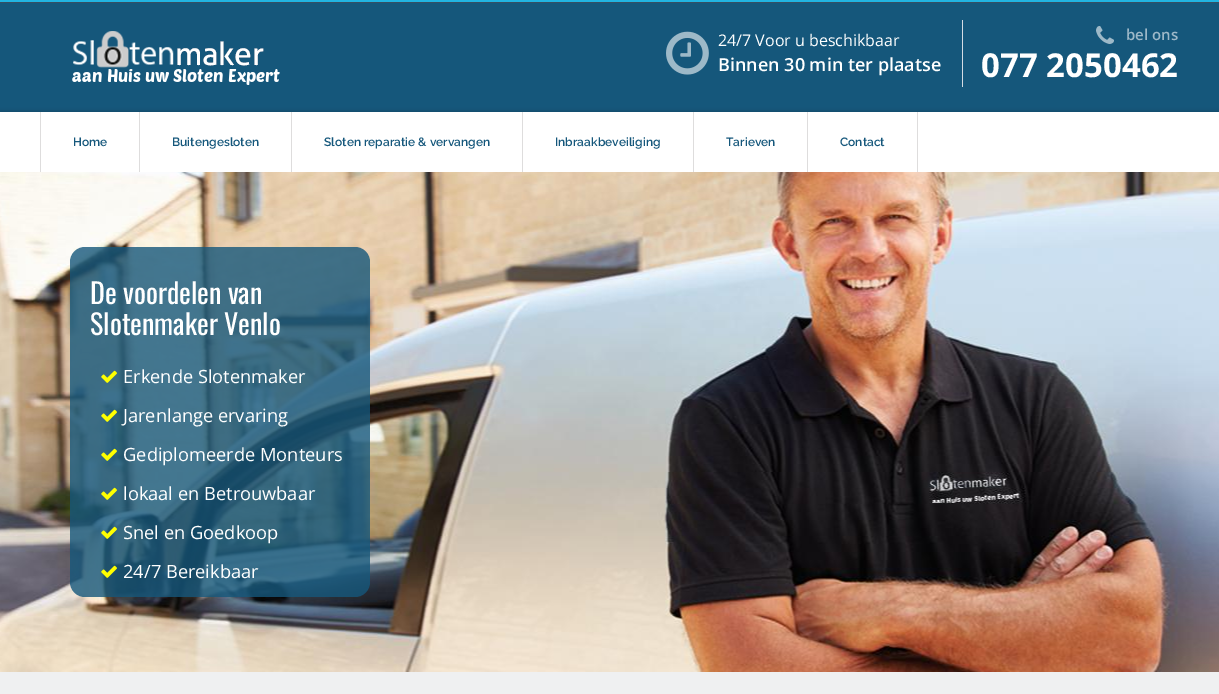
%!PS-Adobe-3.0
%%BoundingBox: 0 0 1219 694
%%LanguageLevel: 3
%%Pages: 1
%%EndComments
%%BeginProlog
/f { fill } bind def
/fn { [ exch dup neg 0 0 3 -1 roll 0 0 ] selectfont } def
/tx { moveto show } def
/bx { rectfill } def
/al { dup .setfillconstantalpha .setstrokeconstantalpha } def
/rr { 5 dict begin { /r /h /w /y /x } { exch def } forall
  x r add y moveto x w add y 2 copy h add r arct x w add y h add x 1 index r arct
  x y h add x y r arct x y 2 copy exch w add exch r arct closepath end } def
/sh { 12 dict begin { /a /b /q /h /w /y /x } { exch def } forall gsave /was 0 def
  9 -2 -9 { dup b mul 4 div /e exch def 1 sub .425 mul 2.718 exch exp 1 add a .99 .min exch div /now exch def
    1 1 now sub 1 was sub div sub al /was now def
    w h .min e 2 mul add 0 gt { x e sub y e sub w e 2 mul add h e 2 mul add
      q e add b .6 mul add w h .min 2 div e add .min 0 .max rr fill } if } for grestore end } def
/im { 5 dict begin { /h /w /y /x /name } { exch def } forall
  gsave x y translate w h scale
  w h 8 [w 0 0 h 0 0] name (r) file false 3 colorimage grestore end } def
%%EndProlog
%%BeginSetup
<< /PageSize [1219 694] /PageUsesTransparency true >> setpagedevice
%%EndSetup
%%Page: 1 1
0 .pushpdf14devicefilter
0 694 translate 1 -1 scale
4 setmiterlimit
0.082 0.341 0.482 setrgbcolor
0 0 1219 694 bx
0.133 0.71 0.886 setrgbcolor
0 0 1219 2 bx
0.212 0.31 0.388 setrgbcolor
0 2 1219 1 bx
(image0.raw) 72 31 208 54 im
(image1.raw) 666 31 43 44 im
/OpenSans-Regular 16 fn
1 setgray
(24/7 Voor u beschikbaar) 718 46 tx
/OpenSans-SemiBold 18 fn
(Binnen 30 min ter plaatse) 718 71 tx
0.835 0.863 0.894 setrgbcolor
962 20 1 67 bx
(image2.raw) 1096 26 18 18 im
/OpenSans-SemiBold 15 fn
0.616 0.722 0.784 setrgbcolor
(bel ons) 1126 40 tx
/OpenSans-Bold 33 fn
1 setgray
(077 2050462) 981 77 tx
0 setgray
0 112 1219 60 0 2.5 0.2 sh
1 setgray
0 112 1219 60 bx
0.871 0.867 0.867 setrgbcolor
40 112 1 60 bx
/Raleway-SemiBold 12 fn
0.082 0.341 0.482 setrgbcolor
(Home) 73 146 tx
0.871 0.867 0.867 setrgbcolor
139 112 1 60 bx
0.082 0.341 0.482 setrgbcolor
(Buitengesloten) 172 146 tx
0.871 0.867 0.867 setrgbcolor
291 112 1 60 bx
0.082 0.341 0.482 setrgbcolor
(Sloten reparatie & vervangen) 324 146 tx
0.871 0.867 0.867 setrgbcolor
522 112 1 60 bx
0.082 0.341 0.482 setrgbcolor
(Inbraakbeveiliging) 555 146 tx
0.871 0.867 0.867 setrgbcolor
693 112 1 60 bx
0.082 0.341 0.482 setrgbcolor
(Tarieven) 726 146 tx
0.871 0.867 0.867 setrgbcolor
807 112 1 60 bx
0.082 0.341 0.482 setrgbcolor
(Contact) 840 146 tx
0.871 0.867 0.867 setrgbcolor
917 112 1 60 bx
(image3.raw) 0 172 1219 500 im
0.8 al
0.082 0.341 0.482 setrgbcolor
70 247 300 350 15 rr f
/Oswald-Regular 28 fn
1 al
1 setgray
(De voordelen van) 90 304 tx
(Slotenmaker Venlo) 90 335 tx
(image4.raw) 101 370 16 13 im
/OpenSans-Regular 18.25 fn
(Erkende Slotenmaker) 123 383 tx
(image5.raw) 101 409 16 13 im
(Jarenlange ervaring) 123 422 tx
(image6.raw) 101 448 16 13 im
(Gediplomeerde Monteurs) 123 461 tx
(image7.raw) 101 487 16 13 im
(lokaal en Betrouwbaar) 123 500 tx
(image8.raw) 101 526 16 13 im
(Snel en Goedkoop) 123 539 tx
(image9.raw) 101 565 16 13 im
(24/7 Bereikbaar) 123 578 tx
0.937 0.941 0.945 setrgbcolor
0 672 1219 22 bx
.poppdf14devicefilter showpage
%%EOF
